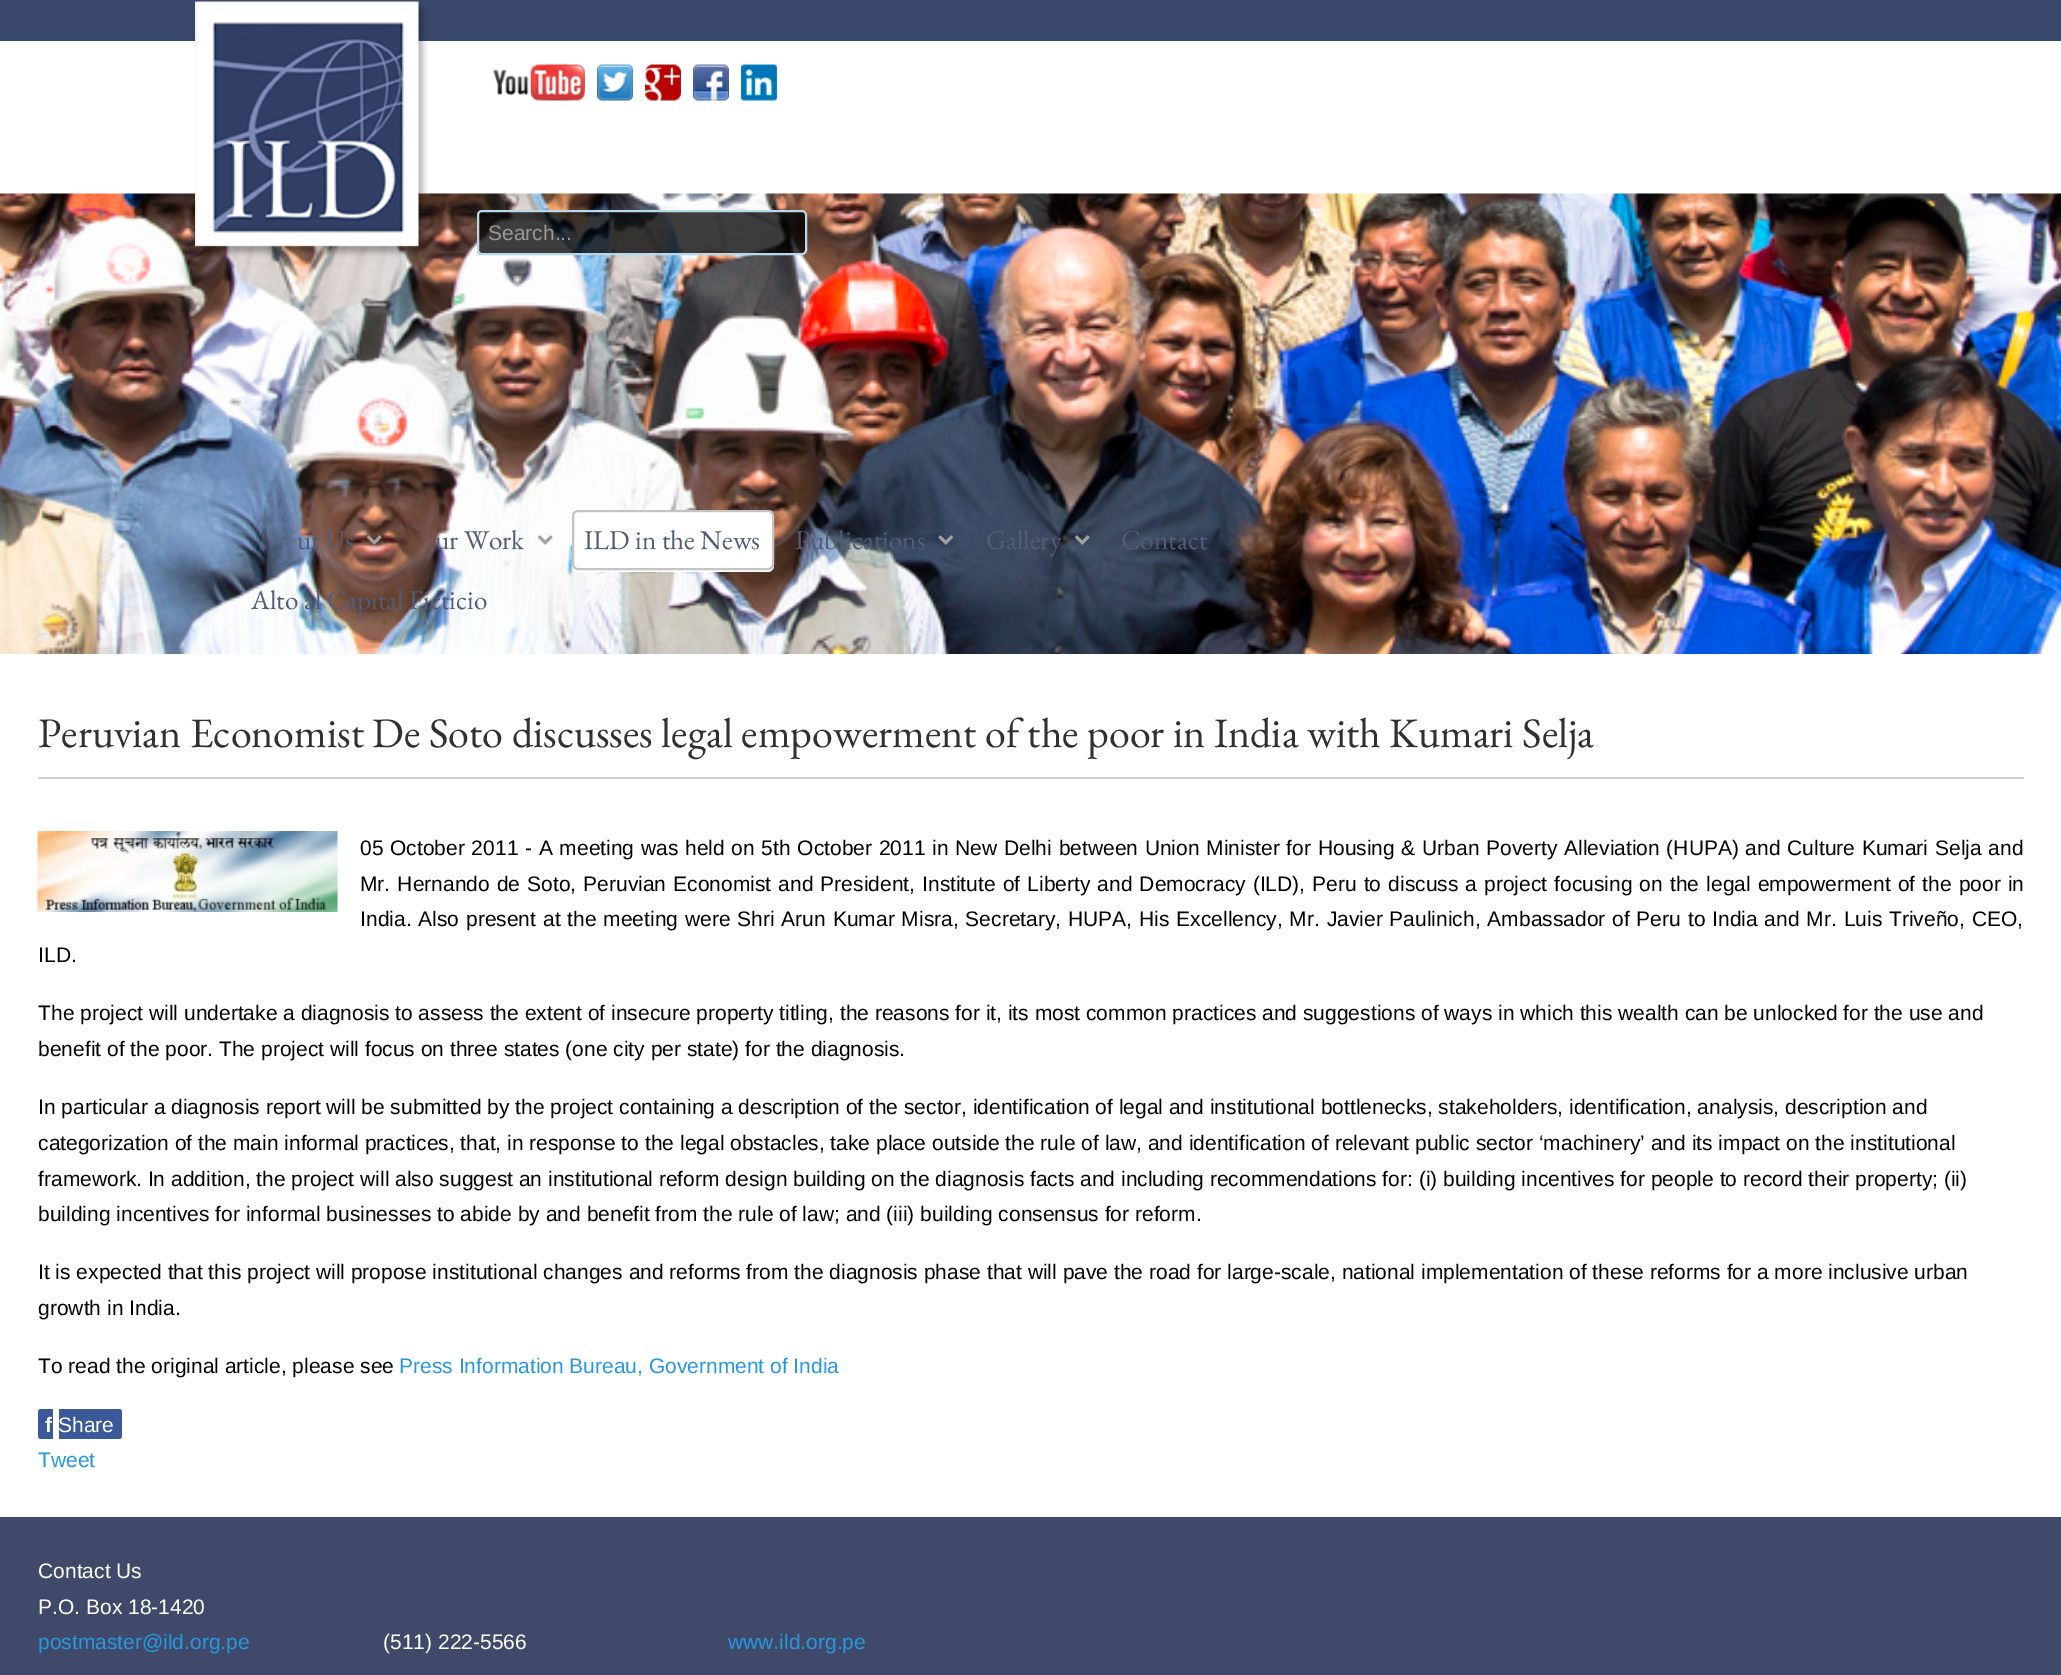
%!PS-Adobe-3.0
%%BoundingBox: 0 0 2061 1675
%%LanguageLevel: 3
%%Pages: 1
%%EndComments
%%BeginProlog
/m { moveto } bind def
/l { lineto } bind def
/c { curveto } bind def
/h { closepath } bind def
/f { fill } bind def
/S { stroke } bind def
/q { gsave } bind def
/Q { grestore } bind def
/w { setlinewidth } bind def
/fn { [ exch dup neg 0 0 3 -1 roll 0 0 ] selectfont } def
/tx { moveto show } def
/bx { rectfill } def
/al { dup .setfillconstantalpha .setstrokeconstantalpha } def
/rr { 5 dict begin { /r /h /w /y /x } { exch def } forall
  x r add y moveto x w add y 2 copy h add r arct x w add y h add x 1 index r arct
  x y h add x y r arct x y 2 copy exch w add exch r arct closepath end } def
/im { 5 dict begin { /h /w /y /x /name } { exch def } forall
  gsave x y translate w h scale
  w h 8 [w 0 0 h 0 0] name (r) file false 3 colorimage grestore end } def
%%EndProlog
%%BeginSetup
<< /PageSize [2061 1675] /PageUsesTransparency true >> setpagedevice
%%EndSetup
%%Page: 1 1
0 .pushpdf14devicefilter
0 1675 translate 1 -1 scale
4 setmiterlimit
1 setgray
0 0 2061 1675 bx
0.224 0.278 0.424 setrgbcolor
0 0 2061 41 bx
(image0.raw) 0 193 2061 461 im
(image1.raw) 195 1 233 295 im
(image2.raw) 493 64 92 37 im
(image3.raw) 597 64 36 37 im
(image4.raw) 645 64 36 37 im
(image5.raw) 693 64 36 37 im
(image6.raw) 741 64 36 37 im
0.76 al
0 setgray
477 210 330 45 5 rr f
0.07 al
482 213 m 802 213 l 804 213 806 214 806 216 c 806 215 l 806 213 805 212 803 212 c 482 212 l 481 212 480 213 479 214 c h f
1 al
0.718 0.851 0.914 setrgbcolor
2 w
478 211 328 43 4 rr S
/LiberationSans-Regular 21 fn
0.6 setgray
(Search...) 488 240 tx
/EBGaramond-Regular 27.25 fn
0.325 0.361 0.475 setrgbcolor
(ut Us) 297 549 tx
(image7.raw) 366 535 16 10 im
(ur Work) 435 549 tx
(image8.raw) 537 535 16 10 im
1 setgray
572 566 m 572 570 575 572 578 572 c 768 572 l 771 572 774 569 774 566 c 774 564 l 774 567 771 570 768 570 c 578 570 l 575 570 573 569 572 566 c h f
573 511 200 58 5 rr q f Q
0.769 setgray
S
0.325 0.361 0.475 setrgbcolor
(ILD in the News) 584 549 tx
(Publications) 795 549 tx
(image9.raw) 938 535 16 10 im
(Gallery) 986 549 tx
(image10.raw) 1074 535 16 10 im
(Contact) 1121 549 tx
(Alto al Capital Ficticio) 251 609 tx
0.82 setgray
38 777 1986 2 bx
/EBGaramond-Regular 42 fn
0.188 setgray
(Peruvian Economist De Soto discusses legal empowerment of the poor in India with Kumari Selja) 38 747 tx
(image11.raw) 37 831 301 81 im
/LiberationSans-Regular 21 fn
0.004 setgray
360 855 m 0.9 0 32 (05 October 2011 - A meeting was held on 5th October 2011 in New Delhi between Union Minister for Housing & Urban Poverty Alleviation \(HUPA\) and Culture Kumari Selja and) widthshow
360 891 m 1.25 0 32 (Mr. Hernando de Soto, Peruvian Economist and President, Institute of Liberty and Democracy \(ILD\), Peru to discuss a project focusing on the legal empowerment of the poor in) widthshow
360 926 m 1.05 0 32 (India. Also present at the meeting were Shri Arun Kumar Misra, Secretary, HUPA, His Excellency, Mr. Javier Paulinich, Ambassador of Peru to India and Mr. Luis Triveño, CEO,) widthshow
(ILD.) 38 962 tx
(The project will undertake a diagnosis to assess the extent of insecure property titling, the reasons for it, its most common practices and suggestions of ways in which this wealth can be unlocked for the use and) 38 1020 tx
(benefit of the poor. The project will focus on three states \(one city per state\) for the diagnosis.) 38 1056 tx
(In particular a diagnosis report will be submitted by the project containing a description of the sector, identification of legal and institutional bottlenecks, stakeholders, identification, analysis, description and) 38 1114 tx
(categorization of the main informal practices, that, in response to the legal obstacles, take place outside the rule of law, and identification of relevant public sector ‘machinery’ and its impact on the institutional) 38 1150 tx
(framework. In addition, the project will also suggest an institutional reform design building on the diagnosis facts and including recommendations for: \(i\) building incentives for people to record their property; \(ii\)) 38 1186 tx
(building incentives for informal businesses to abide by and benefit from the rule of law; and \(iii\) building consensus for reform.) 38 1221 tx
(It is expected that this project will propose institutional changes and reforms from the diagnosis phase that will pave the road for large-scale, national implementation of these reforms for a more inclusive urban) 38 1279 tx
(growth in India.) 38 1315 tx
(To read the original article, please see) 38 1373 tx
0.149 0.596 0.871 setrgbcolor
(Press Information Bureau, Government of India) 399 1373 tx
0.231 0.349 0.596 setrgbcolor
41 1409 m 53 1409 l 53 1439 l 41 1439 l 39.5 1439 38 1437.5 38 1436 c 38 1412 l 38 1410.5 39.5 1409 41 1409 c h f
/LiberationSans-Bold 21 fn
1 setgray
(f) 45 1432 tx
0.231 0.349 0.596 setrgbcolor
59 1409 m 119 1409 l 120.5 1409 122 1410.5 122 1412 c 122 1436 l 122 1437.5 120.5 1439 119 1439 c 59 1439 l h f
/LiberationSans-Regular 21 fn
1 setgray
(Share) 58 1432 tx
0.149 0.596 0.871 setrgbcolor
(Tweet) 38 1467 tx
0.251 0.286 0.416 setrgbcolor
0 1517 2061 158 bx
1 setgray
(Contact Us) 38 1578 tx
(P.O. Box 18-1420) 38 1614 tx
0.149 0.596 0.871 setrgbcolor
(postmaster@ild.org.pe) 38 1649 tx
1 setgray
(\(511\) 222-5566) 383 1649 tx
0.149 0.596 0.871 setrgbcolor
(www.ild.org.pe) 728 1649 tx
.poppdf14devicefilter showpage
%%EOF
